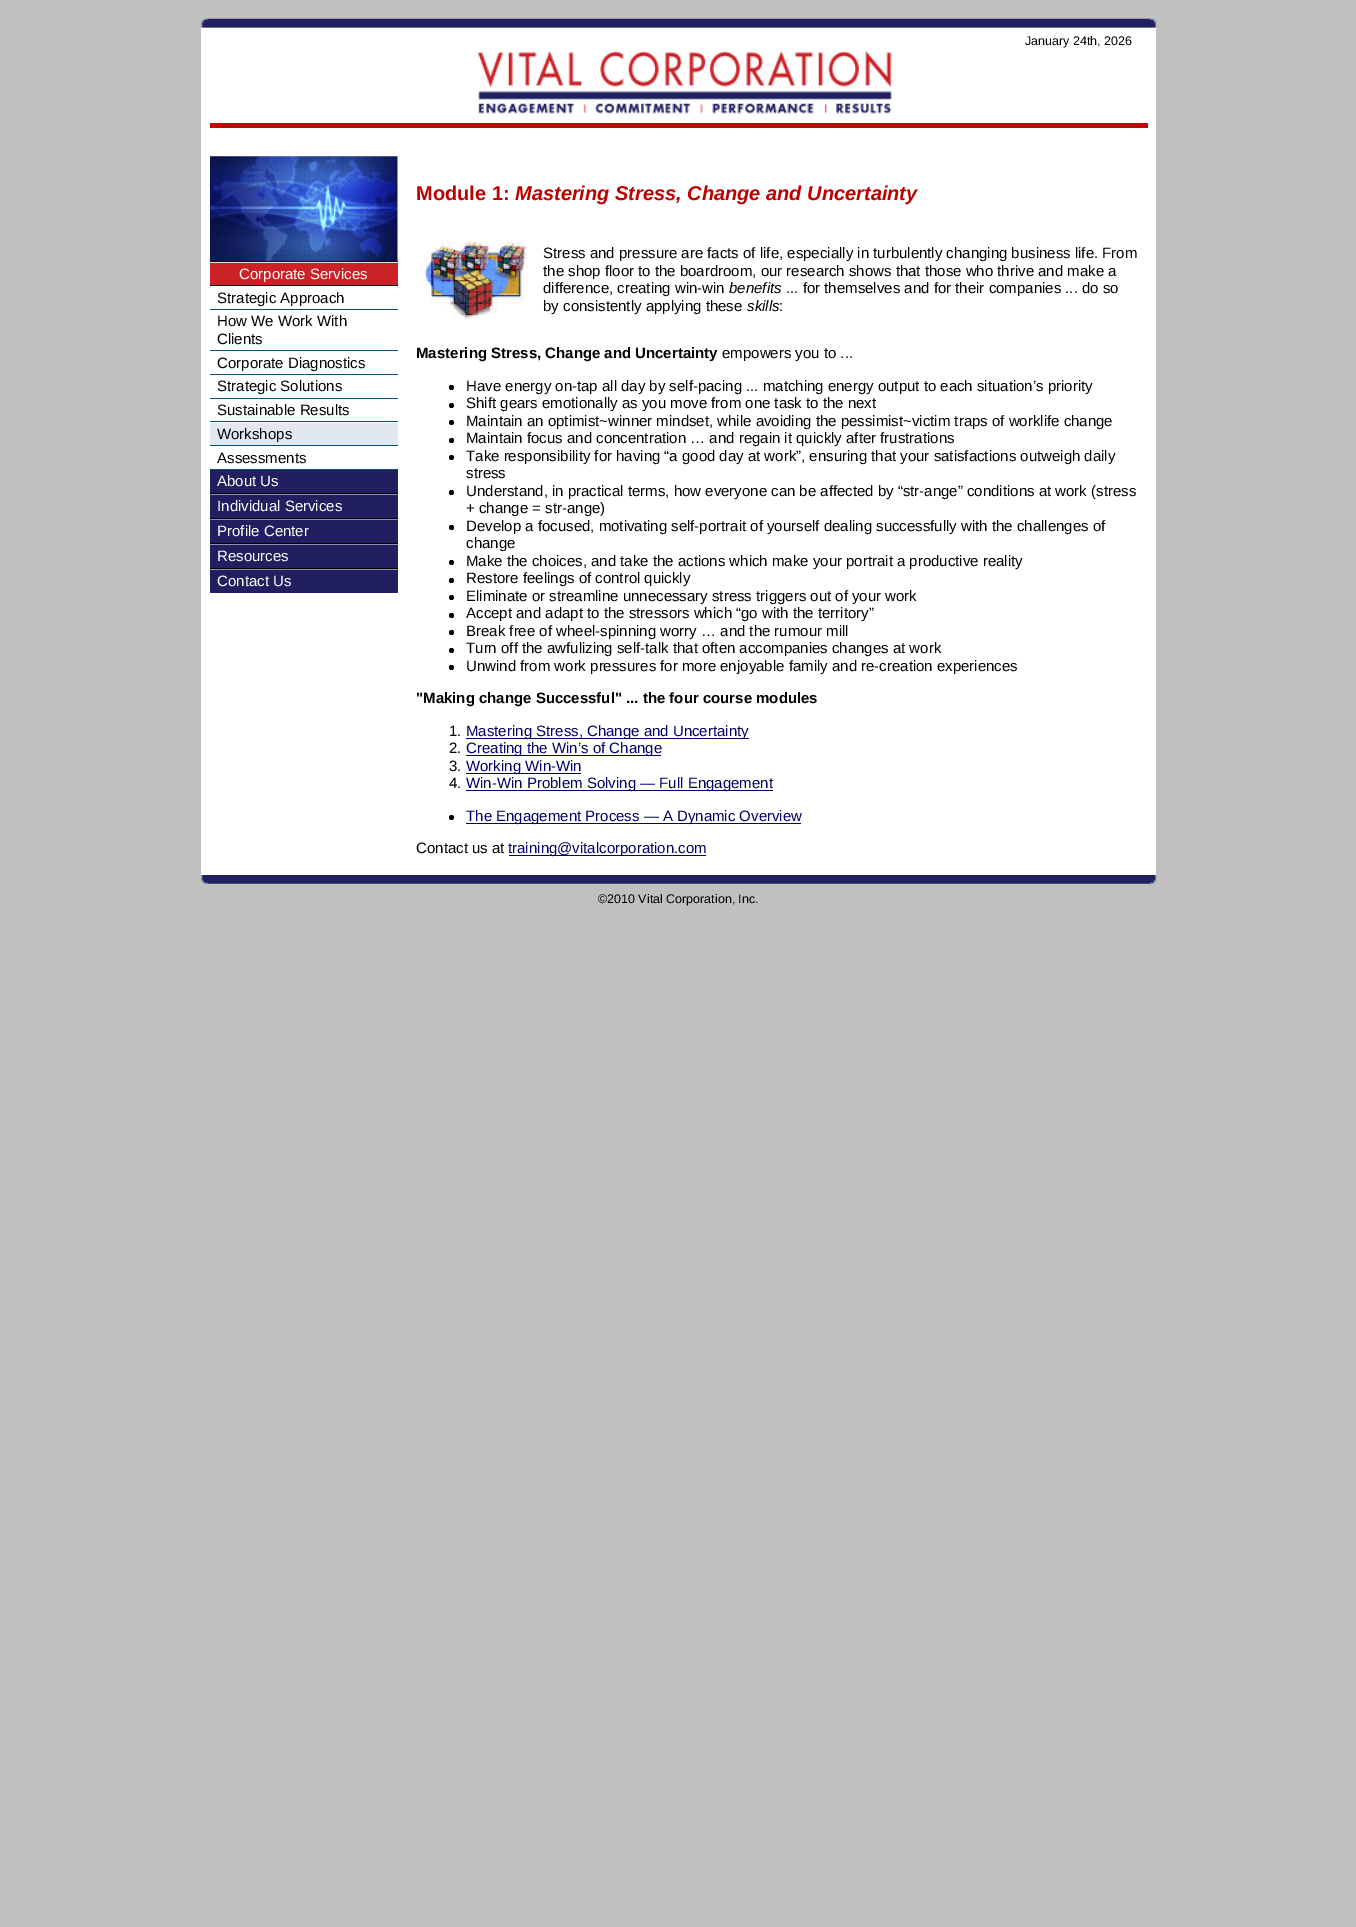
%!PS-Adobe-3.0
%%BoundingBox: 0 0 1356 1927
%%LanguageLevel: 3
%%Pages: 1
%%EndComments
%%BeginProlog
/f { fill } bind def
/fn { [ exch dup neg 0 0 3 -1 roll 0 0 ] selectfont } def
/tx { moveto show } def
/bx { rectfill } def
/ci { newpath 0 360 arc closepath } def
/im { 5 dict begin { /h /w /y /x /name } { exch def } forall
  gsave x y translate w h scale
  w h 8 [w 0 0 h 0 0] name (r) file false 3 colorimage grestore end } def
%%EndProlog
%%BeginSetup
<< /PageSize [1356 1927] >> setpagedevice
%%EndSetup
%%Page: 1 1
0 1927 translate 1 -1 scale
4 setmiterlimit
0.753 setgray
0 0 1356 1927 bx
(image0.raw) 201 18 956 10 im
1 setgray
201 28 955 847 bx
/LiberationSans-Regular 12.5 fn
0 setgray
(January 24th, 2026) 1025 45 tx
(image1.raw) 477 51 415 63 im
0.8 0 0 setrgbcolor
210 123 938 5 bx
0 setgray
210 261 188 1 bx
(image2.raw) 210 156 188 106 im
0.847 0.898 0.929 setrgbcolor
210 262 188 1 bx
0.8 0.129 0.153 setrgbcolor
210 263 188 22 bx
0 setgray
210 285 188 1 bx
/LiberationSans-Regular 15 fn
1 setgray
(Corporate Services) 239 279 tx
0 0.322 0.506 setrgbcolor
210 309 188 1 bx
0 setgray
(Strategic Approach) 217 303 tx
0 0.322 0.506 setrgbcolor
210 350 188 1 bx
0 setgray
(How We Work With) 217 326 tx
(Clients) 217 344 tx
0 0.322 0.506 setrgbcolor
210 374 188 1 bx
0 setgray
(Corporate Diagnostics) 217 368 tx
0 0.322 0.506 setrgbcolor
210 398 188 1 bx
0 setgray
(Strategic Solutions) 217 391 tx
0 0.322 0.506 setrgbcolor
210 421 188 1 bx
0 setgray
(Sustainable Results) 217 415 tx
0 0.322 0.506 setrgbcolor
210 445 188 1 bx
0.882 0.91 0.945 setrgbcolor
210 423 188 22 bx
0 setgray
(Workshops) 217 439 tx
0 0.322 0.506 setrgbcolor
210 469 188 1 bx
0 setgray
(Assessments) 217 463 tx
0.129 0.122 0.373 setrgbcolor
210 470 188 23 bx
0 setgray
210 493 188 1 bx
1 setgray
(About Us) 217 486 tx
0.129 0.122 0.373 setrgbcolor
210 495 188 23 bx
0.565 0.561 0.686 setrgbcolor
210 494 188 1 bx
0 setgray
210 518 188 1 bx
1 setgray
(Individual Services) 217 511 tx
0.129 0.122 0.373 setrgbcolor
210 520 188 23 bx
0.565 0.561 0.686 setrgbcolor
210 519 188 1 bx
0 setgray
210 543 188 1 bx
1 setgray
(Profile Center) 217 536 tx
0.129 0.122 0.373 setrgbcolor
210 545 188 23 bx
0.565 0.561 0.686 setrgbcolor
210 544 188 1 bx
0 setgray
210 568 188 1 bx
1 setgray
(Resources) 217 561 tx
0.129 0.122 0.373 setrgbcolor
210 570 188 23 bx
0.565 0.561 0.686 setrgbcolor
210 569 188 1 bx
1 setgray
(Contact Us) 217 586 tx
/LiberationSans-Bold 20 fn
0.741 0 0 setrgbcolor
(Module 1:) 416 200 tx
/LiberationSans-BoldItalic 20 fn
(Mastering Stress, Change and Uncertainty) 515 200 tx
(image3.raw) 425 241 103 78 im
/LiberationSans-Regular 15 fn
0 setgray
(Stress and pressure are facts of life, especially in turbulently changing business life. From) 543 258 tx
(the shop floor to the boardroom, our research shows that those who thrive and make a) 543 276 tx
(difference, creating win-win) 543 293 tx
/LiberationSans-Italic 15 fn
(benefits) 729 293 tx
/LiberationSans-Regular 15 fn
(... for themselves and for their companies ... do so) 786 293 tx
(by consistently applying these) 543 311 tx
/LiberationSans-Italic 15 fn
(skills) 747 311 tx
/LiberationSans-Regular 15 fn
(:) 779 311 tx
/LiberationSans-Bold 15 fn
(Mastering Stress, Change and Uncertainty) 416 358 tx
/LiberationSans-Regular 15 fn
(empowers you to ...) 722 358 tx
451.5 387.5 2.5 ci f
(Have energy on-tap all day by self-pacing ... matching energy output to each situation’s priority) 466 391 tx
451.5 405.5 2.5 ci f
(Shift gears emotionally as you move from one task to the next) 466 408 tx
451.5 422.5 2.5 ci f
(Maintain an optimist~winner mindset, while avoiding the pessimist~victim traps of worklife change) 466 426 tx
451.5 440.5 2.5 ci f
(Maintain focus and concentration … and regain it quickly after frustrations) 466 443 tx
451.5 457.5 2.5 ci f
(Take responsibility for having “a good day at work”, ensuring that your satisfactions outweigh daily) 466 461 tx
(stress) 466 478 tx
451.5 492.5 2.5 ci f
(Understand, in practical terms, how everyone can be affected by “str-ange” conditions at work \(stress) 466 496 tx
(+ change = str-ange\)) 466 513 tx
451.5 527.5 2.5 ci f
(Develop a focused, motivating self-portrait of yourself dealing successfully with the challenges of) 466 531 tx
(change) 466 548 tx
451.5 562.5 2.5 ci f
(Make the choices, and take the actions which make your portrait a productive reality) 466 566 tx
451.5 580.5 2.5 ci f
(Restore feelings of control quickly) 466 583 tx
451.5 597.5 2.5 ci f
(Eliminate or streamline unnecessary stress triggers out of your work) 466 601 tx
451.5 615.5 2.5 ci f
(Accept and adapt to the stressors which “go with the territory”) 466 618 tx
451.5 632.5 2.5 ci f
(Break free of wheel-spinning worry … and the rumour mill) 466 636 tx
451.5 650.5 2.5 ci f
(Turn off the awfulizing self-talk that often accompanies changes at work) 466 653 tx
451.5 667.5 2.5 ci f
(Unwind from work pressures for more enjoyable family and re-creation experiences) 466 671 tx
/LiberationSans-Bold 15 fn
("Making change Successful" ... the four course modules) 416 703 tx
/LiberationSans-Regular 15 fn
(1.) 449 736 tx
0 0 0.4 setrgbcolor
466 738 283 1 bx
(Mastering Stress, Change and Uncertainty) 466 736 tx
0 setgray
(2.) 449 753 tx
0 0 0.4 setrgbcolor
466 755 195 1 bx
(Creating the Win’s of Change) 466 753 tx
0 setgray
(3.) 449 771 tx
0 0 0.4 setrgbcolor
466 773 115 1 bx
(Working Win-Win) 466 771 tx
0 setgray
(4.) 449 788 tx
0 0 0.4 setrgbcolor
466 790 307 1 bx
(Win-Win Problem Solving — Full Engagement) 466 788 tx
0 setgray
451.5 817.5 2.5 ci f
0 0 0.4 setrgbcolor
466 823 335 1 bx
(The Engagement Process — A Dynamic Overview) 466 821 tx
0 setgray
(Contact us at) 416 853 tx
0 0 0.4 setrgbcolor
509 855 197 1 bx
(training@vitalcorporation.com) 508 853 tx
(image4.raw) 201 875 956 9 im
/LiberationSans-Regular 12.5 fn
0 setgray
(©2010 Vital Corporation, Inc.) 598 903 tx
showpage
%%EOF
